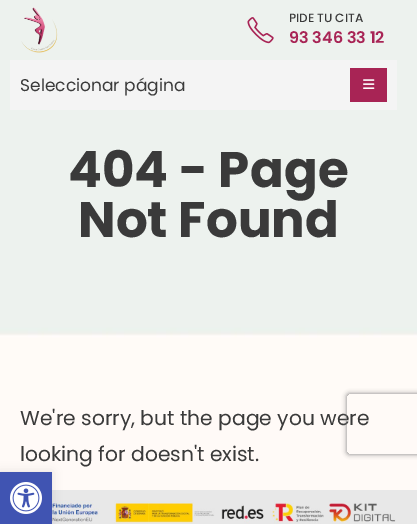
%!PS-Adobe-3.0
%%BoundingBox: 0 0 417 524
%%LanguageLevel: 3
%%Pages: 1
%%EndComments
%%BeginProlog
/m { moveto } bind def
/l { lineto } bind def
/c { curveto } bind def
/h { closepath } bind def
/q { gsave } bind def
/Q { grestore } bind def
/fn { [ exch dup neg 0 0 3 -1 roll 0 0 ] selectfont } def
/tx { moveto show } def
/bx { rectfill } def
/al { dup .setfillconstantalpha .setstrokeconstantalpha } def
/rr { 5 dict begin { /r /h /w /y /x } { exch def } forall
  x r add y moveto x w add y 2 copy h add r arct x w add y h add x 1 index r arct
  x y h add x y r arct x y 2 copy exch w add exch r arct closepath end } def
/sh { 12 dict begin { /a /b /q /h /w /y /x } { exch def } forall gsave /was 0 def
  9 -2 -9 { dup b mul 4 div /e exch def 1 sub .425 mul 2.718 exch exp 1 add a .99 .min exch div /now exch def
    1 1 now sub 1 was sub div sub al /was now def
    w h .min e 2 mul add 0 gt { x e sub y e sub w e 2 mul add h e 2 mul add
      q e add b .6 mul add w h .min 2 div e add .min 0 .max rr fill } if } for grestore end } def
/im { 5 dict begin { /h /w /y /x /name } { exch def } forall
  gsave x y translate w h scale
  w h 8 [w 0 0 h 0 0] name (r) file false 3 colorimage grestore end } def
%%EndProlog
%%BeginSetup
<< /PageSize [417 524] /PageUsesTransparency true >> setpagedevice
%%EndSetup
%%Page: 1 1
0 .pushpdf14devicefilter
0 524 translate 1 -1 scale
4 setmiterlimit
1 0.98 0.969 setrgbcolor
0 0 417 524 bx
(image3.raw) 0 0 417 400 im
(image0.raw) 21 7 37 46 im
(image1.raw) 247 17 27 27 im
/Poppins-Medium 12 fn
0.227 setgray
(PIDE TU CITA) 289 22 tx
/Poppins-SemiBold 16 fn
0.659 0.141 0.333 setrgbcolor
(93 346 33 12) 289 43 tx
0.957 setgray
10 60 387 50 bx
/Poppins-Regular 17 fn
0.227 setgray
(Seleccionar página) 20 91 tx
0.659 0.141 0.333 setrgbcolor
350 68 37 34 bx
(image2.raw) 363 79 12 10 im
/Poppins-Bold 50 fn
0.227 setgray
(404 - Page) 68 187 tx
(Not Found) 78 237 tx
/Poppins-Regular 20.25 fn
(We're sorry, but the page you were) 20 425 tx
(looking for doesn't exist.) 20 461 tx
0.91 setgray
52 490 365 34 bx
(image4.raw) 52 500 344 24 im
q
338 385 m 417 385 l 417 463 l 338 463 l h 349 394 m 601 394 l 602 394 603 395 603 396 c 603 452 l 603 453 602 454 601 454 c 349 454 l 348 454 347 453 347 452 c 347 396 l 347 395 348 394 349 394 c h eoclip newpath
0.502 setgray
347 394 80 60 2 2.5 1 sh
Q
0 setgray
0 472 52 52 0 5 0.1 sh
0.251 0.329 0.698 setrgbcolor
0 472 52 52 bx
(image5.raw) 10 482 32 32 im
.poppdf14devicefilter showpage
%%EOF
